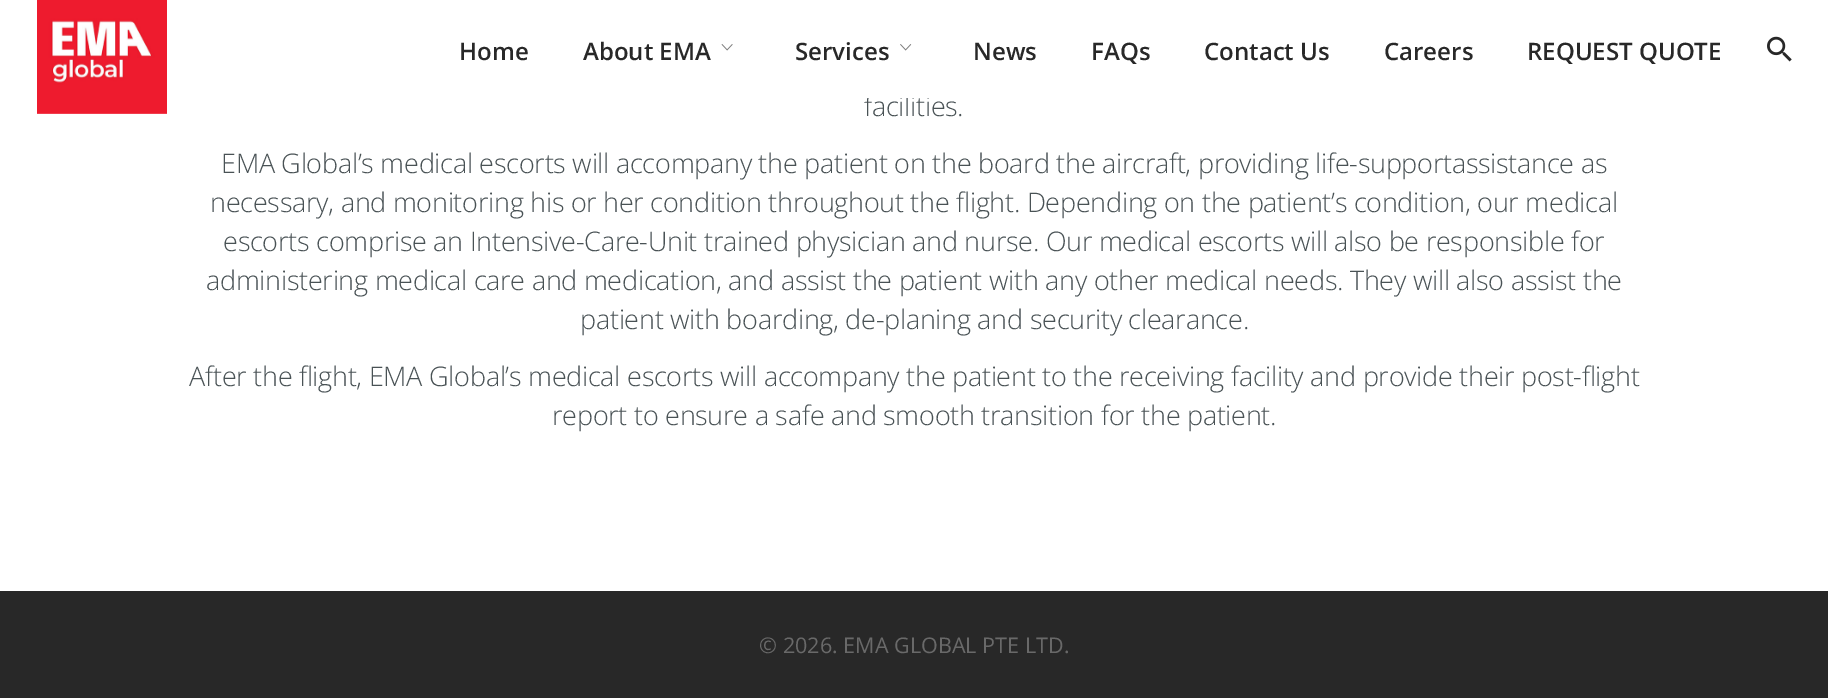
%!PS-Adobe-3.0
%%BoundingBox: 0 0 1828 698
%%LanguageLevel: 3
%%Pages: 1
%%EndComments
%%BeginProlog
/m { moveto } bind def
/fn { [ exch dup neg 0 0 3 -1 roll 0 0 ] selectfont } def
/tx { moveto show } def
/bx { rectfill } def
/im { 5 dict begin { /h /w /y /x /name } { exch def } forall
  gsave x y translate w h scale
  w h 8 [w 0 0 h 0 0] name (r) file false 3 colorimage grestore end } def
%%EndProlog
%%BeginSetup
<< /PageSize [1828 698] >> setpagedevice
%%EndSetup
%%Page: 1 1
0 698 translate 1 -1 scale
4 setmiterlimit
1 setgray
0 0 1828 698 bx
/OpenSans-Light 27 fn
0.286 0.322 0.333 setrgbcolor
864 116 m -0.27 0 (facilities.) ashow
1 setgray
867 95 63 3 bx
(image0.raw) 37 0 130 114 im
/OpenSans-SemiBold 24 fn
0.157 setgray
(Home) 459 60 tx
(About EMA) 583 60 tx
(image1.raw) 721 44 12 7 im
(Services) 795 60 tx
(image2.raw) 900 44 12 7 im
(News) 973 60 tx
(FAQs) 1091 60 tx
(Contact Us) 1204 60 tx
(Careers) 1384 60 tx
(REQUEST QUOTE) 1527 60 tx
(image3.raw) 1767 36 25 26 im
/OpenSans-Light 27 fn
0.286 0.322 0.333 setrgbcolor
221 173 m -0.27 0 (EMA Global’s medical escorts will accompany the patient on the board the aircraft, providing life-supportassistance as) ashow
210 212 m -0.27 0 (necessary, and monitoring his or her condition throughout the flight. Depending on the patient’s condition, our medical) ashow
223 251 m -0.27 0 (escorts comprise an Intensive-Care-Unit trained physician and nurse. Our medical escorts will also be responsible for) ashow
206 290 m -0.27 0 (administering medical care and medication, and assist the patient with any other medical needs. They will also assist the) ashow
580 329 m -0.27 0 (patient with boarding, de-planing and security clearance.) ashow
189 386 m -0.27 0 (After the flight, EMA Global’s medical escorts will accompany the patient to the receiving facility and provide their post-flight) ashow
552 425 m -0.27 0 (report to ensure a safe and smooth transition for the patient.) ashow
0.157 setgray
0 591 1828 107 bx
/OpenSans-Regular 21.6 fn
0.412 setgray
(© 2026. EMA GLOBAL PTE LTD.) 759 653 tx
showpage
%%EOF
